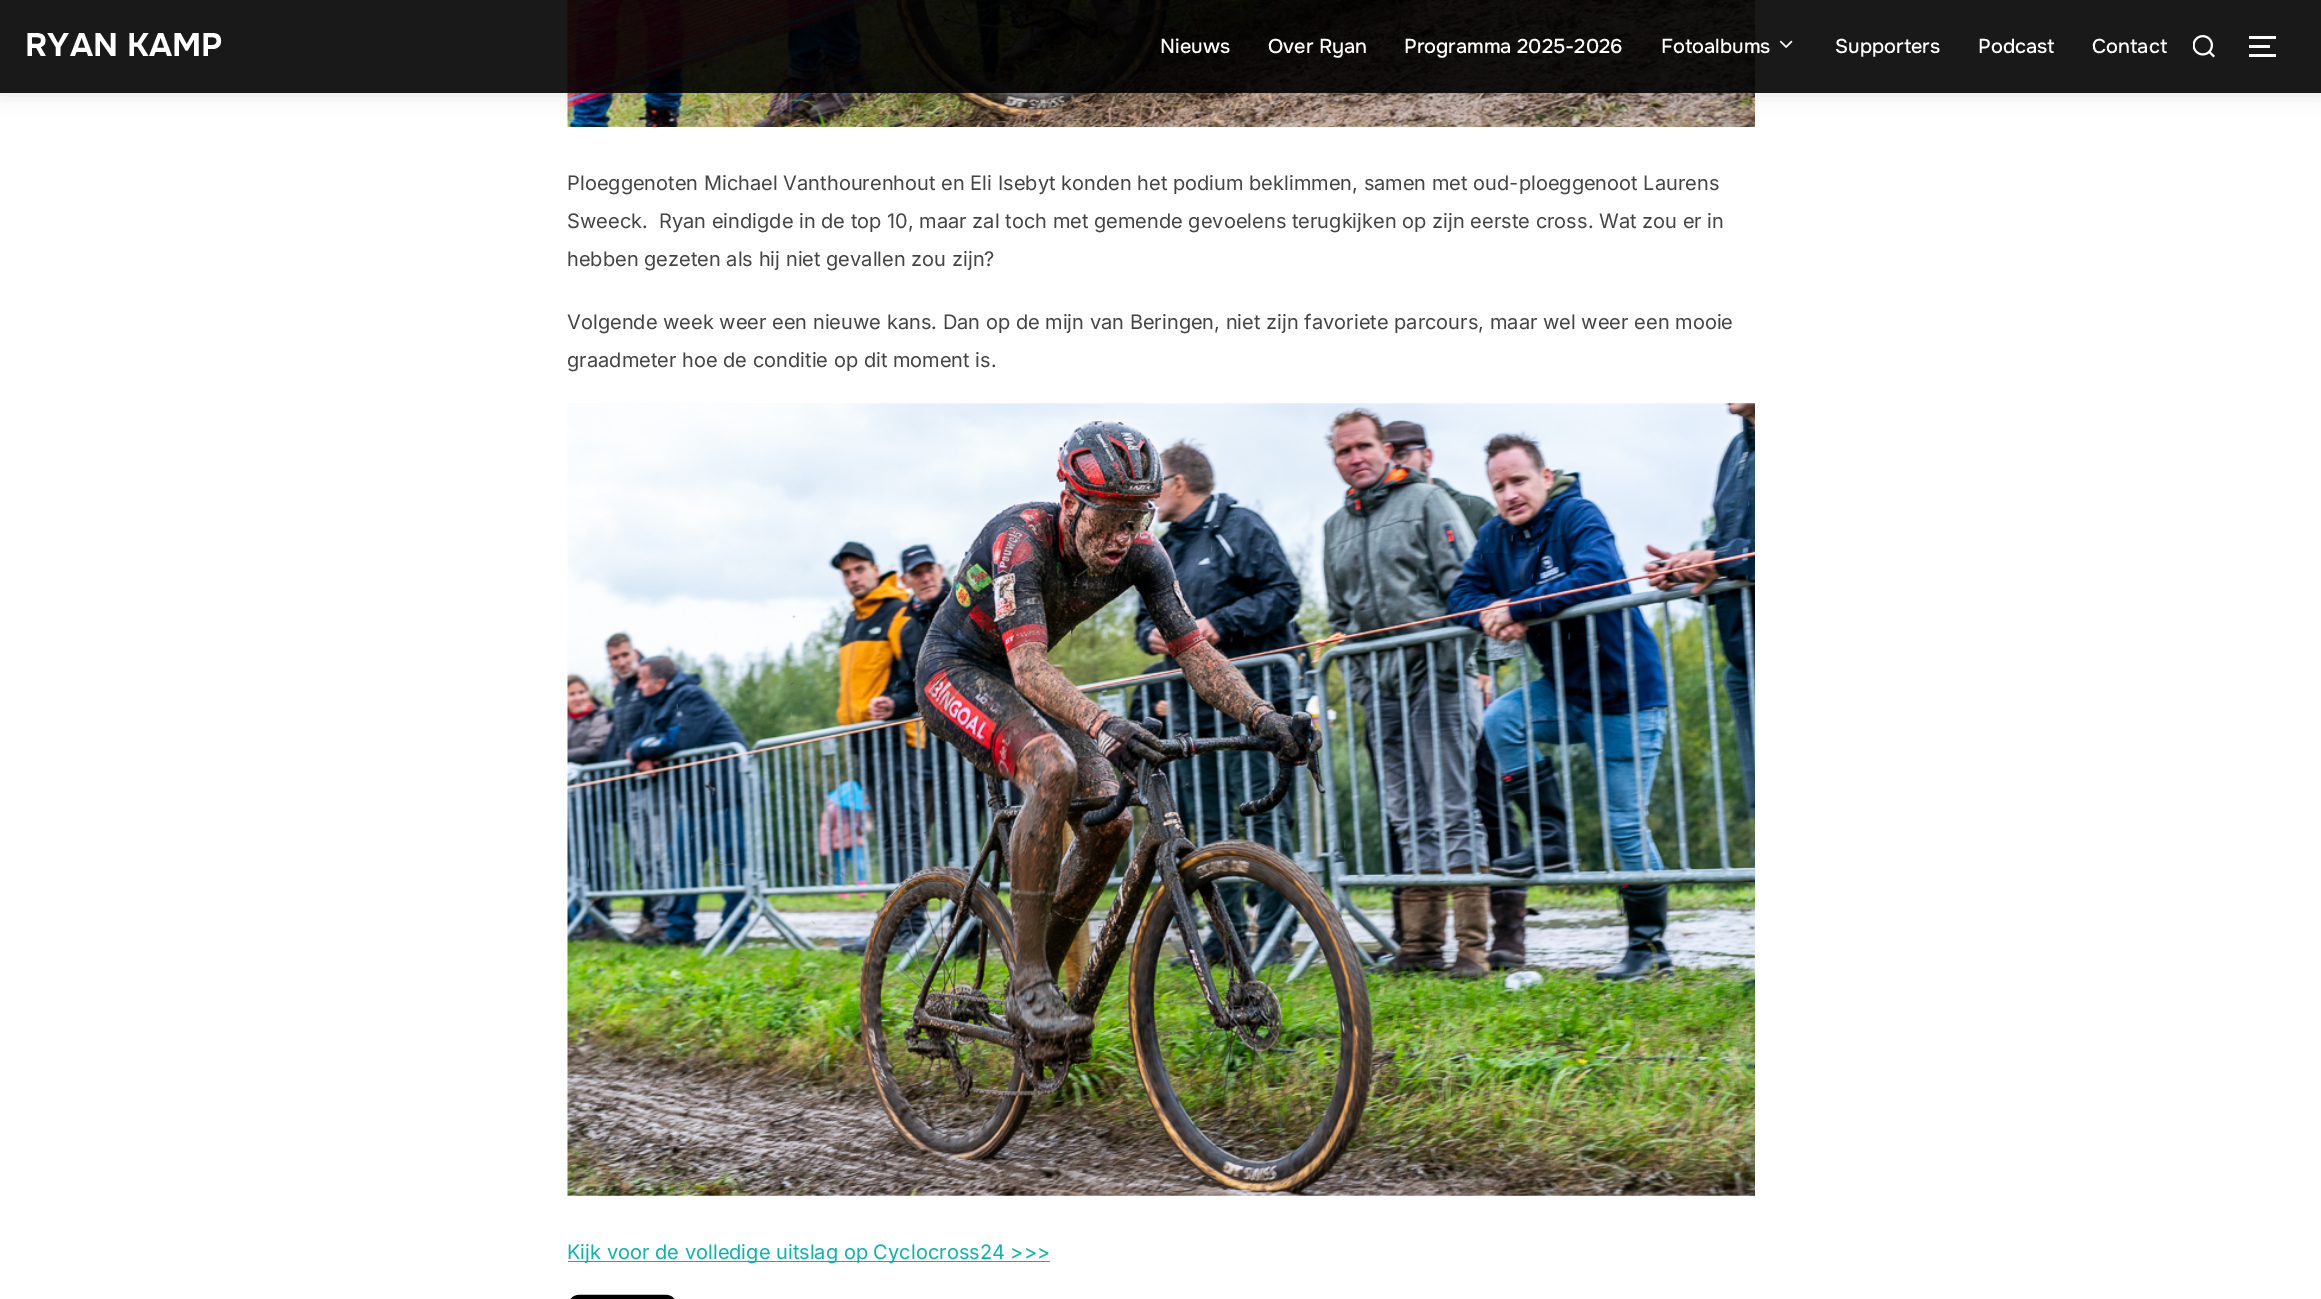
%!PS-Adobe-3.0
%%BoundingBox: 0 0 2321 1299
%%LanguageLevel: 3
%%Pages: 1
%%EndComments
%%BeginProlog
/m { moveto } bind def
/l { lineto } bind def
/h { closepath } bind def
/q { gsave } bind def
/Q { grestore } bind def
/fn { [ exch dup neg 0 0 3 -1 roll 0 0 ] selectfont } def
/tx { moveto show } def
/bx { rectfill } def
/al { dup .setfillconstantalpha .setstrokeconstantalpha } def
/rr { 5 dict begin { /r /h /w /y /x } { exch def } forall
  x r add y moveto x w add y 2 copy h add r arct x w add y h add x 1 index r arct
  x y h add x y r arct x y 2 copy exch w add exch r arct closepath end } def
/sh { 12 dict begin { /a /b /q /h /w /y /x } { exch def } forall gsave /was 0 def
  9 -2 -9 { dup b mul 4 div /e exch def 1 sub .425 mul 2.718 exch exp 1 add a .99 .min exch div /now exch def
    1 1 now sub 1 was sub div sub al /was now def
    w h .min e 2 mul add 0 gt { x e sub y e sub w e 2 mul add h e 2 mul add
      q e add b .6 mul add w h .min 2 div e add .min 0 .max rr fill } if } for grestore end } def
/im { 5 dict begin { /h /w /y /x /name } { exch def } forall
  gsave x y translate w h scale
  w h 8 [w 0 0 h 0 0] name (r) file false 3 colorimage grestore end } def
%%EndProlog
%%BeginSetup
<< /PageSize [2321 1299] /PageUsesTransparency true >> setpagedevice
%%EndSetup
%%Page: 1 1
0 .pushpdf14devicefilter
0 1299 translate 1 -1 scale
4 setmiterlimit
1 setgray
0 0 2321 1299 bx
(image2.raw) 567 0 1188 127 im
q
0 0 m 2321 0 l 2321 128 l 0 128 l h 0 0 m 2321 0 l 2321 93 l 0 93 l h eoclip newpath
0 setgray
-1 -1 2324 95 0 11 0.1 sh
Q
0.9 al
0 setgray
0 0 2321 93 bx
/Onest-Bold 32.5 fn
1 al
1 setgray
(RYAN KAMP) 25 56 tx
/Onest-Medium 20 fn
(Nieuws) 1160 53 tx
(Over Ryan) 1268 53 tx
(Programma 2025-2026) 1404 53 tx
(Fotoalbums) 1661 53 tx
(image0.raw) 1779 40 14 8 im
(Supporters) 1835 53 tx
(Podcast) 1978 53 tx
(Contact) 2092 53 tx
(image1.raw) 2193 35 22 23 im
2249 36 27 3 bx
2249 45 21 3 bx
2249 54 27 3 bx
/Inter-Regular 20 fn
0.267 setgray
(Ploeggenoten Michael Vanthourenhout en Eli Isebyt konden het podium beklimmen, samen met oud-ploeggenoot Laurens) 567 190 tx
(Sweeck.  Ryan eindigde in de top 10, maar zal toch met gemende gevoelens terugkijken op zijn eerste cross. Wat zou er in) 567 228 tx
(hebben gezeten als hij niet gevallen zou zijn?) 567 266 tx
(Volgende week weer een nieuwe kans. Dan op de mijn van Beringen, niet zijn favoriete parcours, maar wel weer een mooie) 567 329 tx
(graadmeter hoe de conditie op dit moment is.) 567 367 tx
(image3.raw) 567 403 1188 793 im
0.043 0.706 0.667 setrgbcolor
568 1261 482 1 bx
(Kijk voor de volledige uitslag op Cyclocross24 >>>) 567 1259 tx
(image4.raw) 570 1294 105 5 im
.poppdf14devicefilter showpage
%%EOF
